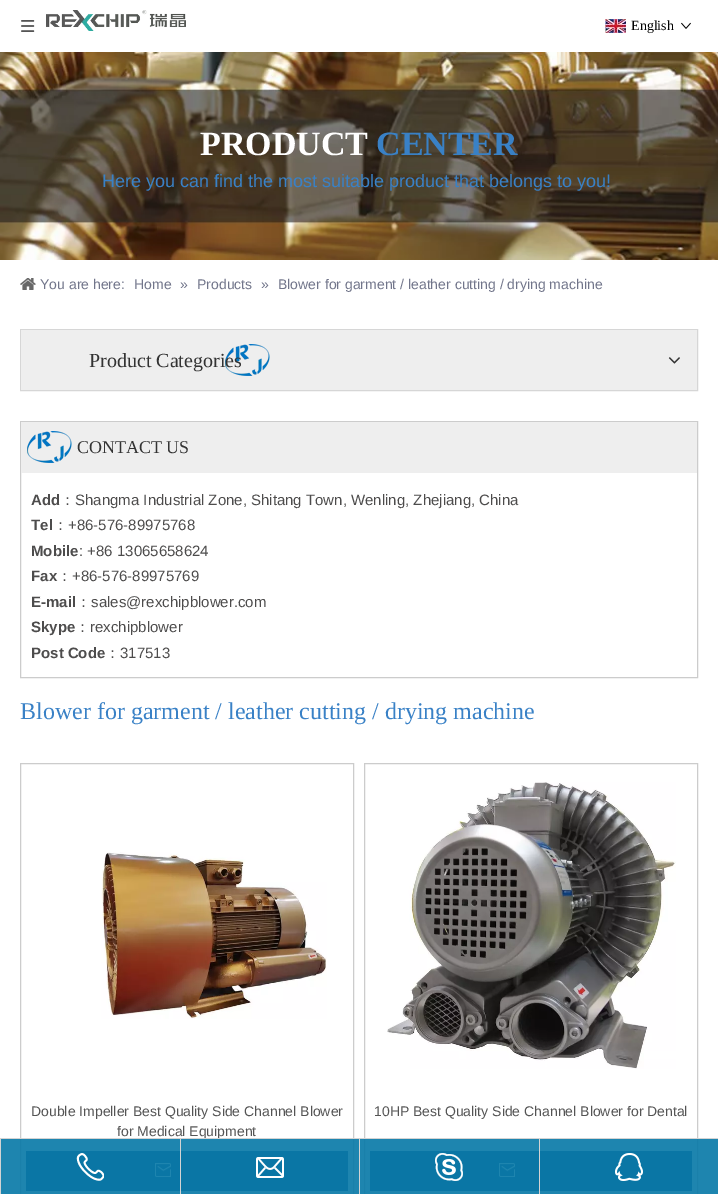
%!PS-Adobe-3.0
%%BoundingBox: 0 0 718 1194
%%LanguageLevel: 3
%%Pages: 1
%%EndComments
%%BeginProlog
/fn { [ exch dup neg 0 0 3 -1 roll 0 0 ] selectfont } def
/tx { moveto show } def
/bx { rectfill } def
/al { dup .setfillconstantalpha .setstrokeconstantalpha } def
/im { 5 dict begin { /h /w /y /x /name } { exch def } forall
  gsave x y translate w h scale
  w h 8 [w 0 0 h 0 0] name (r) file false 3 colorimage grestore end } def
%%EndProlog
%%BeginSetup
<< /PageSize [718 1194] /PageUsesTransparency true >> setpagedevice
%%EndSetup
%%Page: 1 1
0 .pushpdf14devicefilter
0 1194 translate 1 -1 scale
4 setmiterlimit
1 setgray
0 0 718 1194 bx
(image0.raw) 21 20 14 12 im
(image1.raw) 46 10 140 21 im
(image2.raw) 605 19 21 14 im
/LiberationSerif-Regular 14 fn
0 setgray
(English) 631 30 tx
(image3.raw) 681 22 10 7 im
(image4.raw) 0 52 718 208 im
/LiberationSerif-Bold 34 fn
1 setgray
(PRODUCT) 200 155 tx
0.224 0.506 0.776 setrgbcolor
(CENTER) 376 155 tx
/LiberationSans-Regular 18 fn
(Here you can find the most suitable product that belongs to you!) 102 187 tx
(image5.raw) 20 278 16 12 im
/LiberationSans-Regular 14 fn
0.443 0.459 0.541 setrgbcolor
(You are here:) 40 289 tx
(Home) 134 289 tx
(») 180 289 tx
(Products) 197 289 tx
(») 261 289 tx
(Blower for garment / leather cutting / drying machine) 278 289 tx
0.839 setgray
20.5 329.5 677 61 rectstroke
0.933 setgray
21 330 676 60 bx
(image6.raw) 225 344 45 32 im
/LiberationSerif-Regular 20 fn
0.2 setgray
(Product Categories) 89 367 tx
(image7.raw) 668 357 12 7 im
0.8 setgray
20.5 421.5 677 256 rectstroke
0.933 setgray
21 422 676 51 bx
(image6.raw) 27 431 45 32 im
/LiberationSerif-Regular 18 fn
0.2 setgray
(CONTACT US) 77 453 tx
/LiberationSans-Bold 15 fn
0.302 0.298 0.298 setrgbcolor
(Add) 31 505 tx
/WenQuanYiZenHei-Medium 15 fn
(：) 60 505 tx
/LiberationSans-Regular 15 fn
(Shangma Industrial Zone, Shitang Town, Wenling, Zhejiang, China) 75 505 tx
/LiberationSans-Bold 15 fn
(Tel) 31 530 tx
/WenQuanYiZenHei-Medium 15 fn
(：) 53 530 tx
/LiberationSans-Regular 15 fn
(+86-576-89975768) 68 530 tx
/LiberationSans-Bold 15 fn
(Mobile) 31 556 tx
/LiberationSans-Regular 15 fn
(: +86 13065658624) 79 556 tx
/LiberationSans-Bold 15 fn
(Fax) 31 581 tx
/WenQuanYiZenHei-Medium 15 fn
(：) 57 581 tx
/LiberationSans-Regular 15 fn
(+86-576-89975769) 72 581 tx
/LiberationSans-Bold 15 fn
(E-mail) 31 607 tx
/WenQuanYiZenHei-Medium 15 fn
(：) 76 607 tx
/LiberationSans-Regular 15 fn
(sales@rexchipblower.com) 91 607 tx
/LiberationSans-Bold 15 fn
(Skype) 31 632 tx
/WenQuanYiZenHei-Medium 15 fn
(：) 75 632 tx
/LiberationSans-Regular 15 fn
(rexchipblower) 90 632 tx
/LiberationSans-Bold 15 fn
(Post Code) 31 658 tx
/WenQuanYiZenHei-Medium 15 fn
(：) 105 658 tx
/LiberationSans-Regular 15 fn
(317513) 120 658 tx
/LiberationSerif-Regular 24 fn
0.224 0.506 0.776 setrgbcolor
(Blower for garment / leather cutting / drying machine) 20 719 tx
0.8 setgray
20.5 763.5 333 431 rectstroke
(image8.raw) 101 852 226 167 im
/LiberationSans-Regular 14 fn
0.329 setgray
(Double Impeller Best Quality Side Channel Blower) 31 1116 tx
(for Medical Equipment) 117 1136 tx
0.114 0.349 0.569 setrgbcolor
26 1151 322 40 bx
(image9.raw) 155 1163 16 14 im
0.8 setgray
364.5 763.5 333 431 rectstroke
(image10.raw) 387 782 289 287 im
0.329 setgray
(10HP Best Quality Side Channel Blower for Dental) 374 1116 tx
0.114 0.349 0.569 setrgbcolor
370 1151 322 40 bx
(image9.raw) 499 1163 16 14 im
0.827 setgray
0 1138 718 1 bx
0 1139 1 55 bx
0.91 al
0.031 0.475 0.655 setrgbcolor
1 1139 179 55 bx
1 al
(image11.raw) 76 1153 28 28 im
0.827 setgray
180 1139 1 55 bx
0.91 al
0.031 0.475 0.655 setrgbcolor
181 1139 178 55 bx
1 al
(image12.raw) 256 1157 28 21 im
0.827 setgray
359 1139 1 55 bx
0.91 al
0.031 0.475 0.655 setrgbcolor
360 1139 179 55 bx
1 al
(image13.raw) 435 1153 28 28 im
0.827 setgray
539 1139 1 55 bx
0.91 al
0.031 0.475 0.655 setrgbcolor
540 1139 178 55 bx
1 al
(image14.raw) 615 1153 28 28 im
.poppdf14devicefilter showpage
%%EOF
